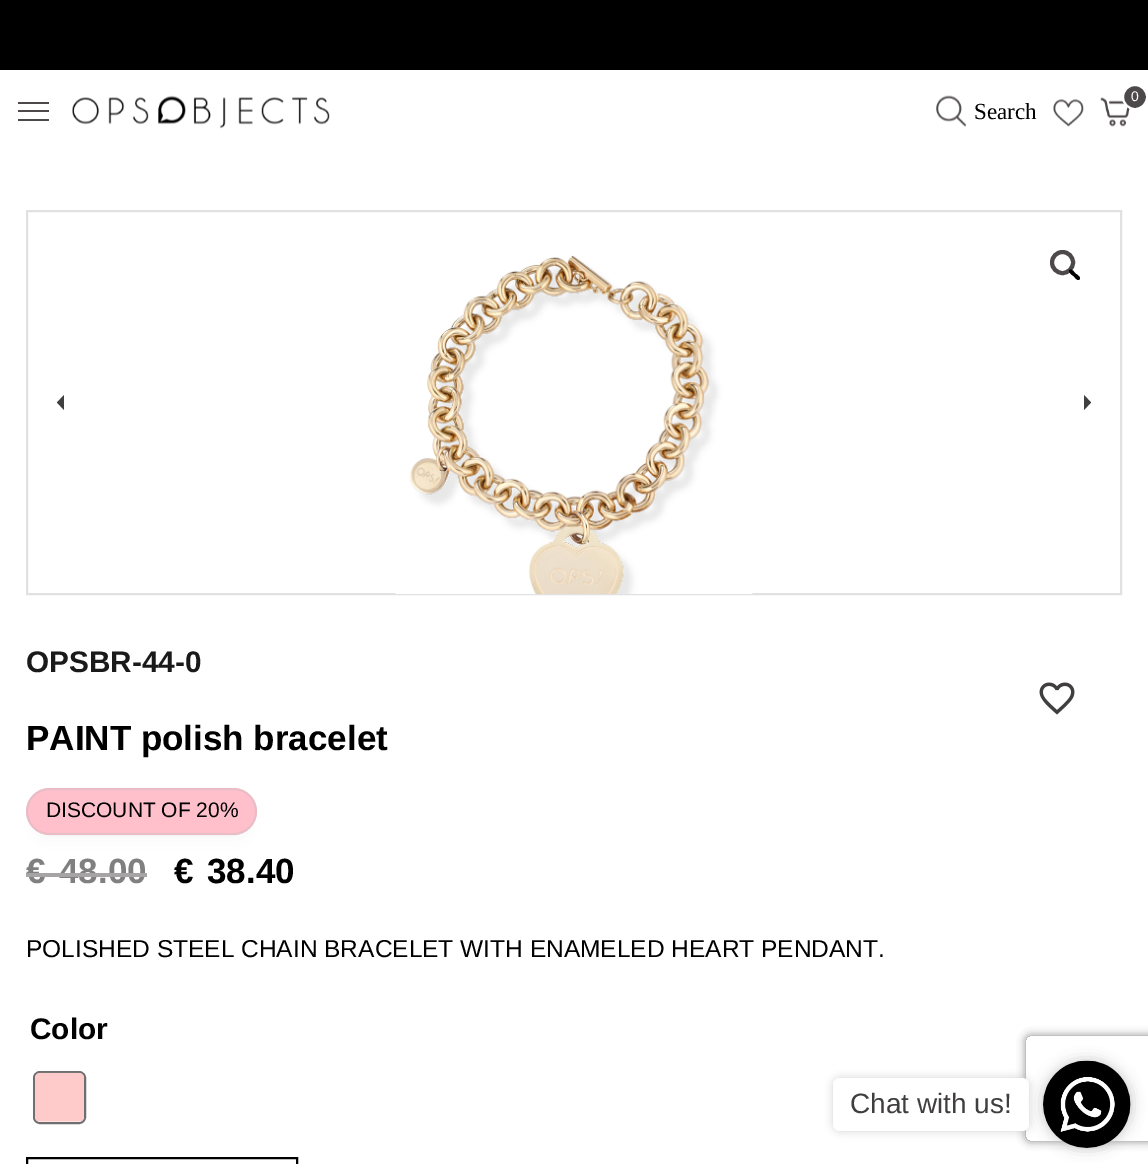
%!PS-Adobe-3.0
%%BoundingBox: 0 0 1148 1164
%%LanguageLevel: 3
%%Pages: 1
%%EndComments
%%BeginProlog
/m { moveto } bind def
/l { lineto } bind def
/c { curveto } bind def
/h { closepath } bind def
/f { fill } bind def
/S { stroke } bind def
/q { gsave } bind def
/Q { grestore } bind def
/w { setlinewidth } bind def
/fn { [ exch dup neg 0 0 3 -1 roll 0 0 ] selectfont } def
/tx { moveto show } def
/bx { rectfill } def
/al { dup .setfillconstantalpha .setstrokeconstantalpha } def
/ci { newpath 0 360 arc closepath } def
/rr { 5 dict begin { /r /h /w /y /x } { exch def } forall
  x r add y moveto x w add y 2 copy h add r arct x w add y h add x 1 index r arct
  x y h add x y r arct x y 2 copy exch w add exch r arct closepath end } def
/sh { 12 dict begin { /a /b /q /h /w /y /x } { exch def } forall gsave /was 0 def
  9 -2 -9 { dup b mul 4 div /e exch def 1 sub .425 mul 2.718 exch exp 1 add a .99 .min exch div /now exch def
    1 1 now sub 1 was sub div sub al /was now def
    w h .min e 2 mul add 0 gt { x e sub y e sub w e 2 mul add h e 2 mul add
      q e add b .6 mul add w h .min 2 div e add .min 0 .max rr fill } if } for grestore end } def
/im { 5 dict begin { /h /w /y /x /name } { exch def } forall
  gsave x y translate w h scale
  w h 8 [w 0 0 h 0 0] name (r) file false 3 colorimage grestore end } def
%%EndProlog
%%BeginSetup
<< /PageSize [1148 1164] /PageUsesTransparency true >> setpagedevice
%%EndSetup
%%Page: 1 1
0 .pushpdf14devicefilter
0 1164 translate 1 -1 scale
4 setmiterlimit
1 setgray
0 0 1148 1164 bx
0 setgray
0 0 1148 70 bx
(image0.raw) 72 95 258 34 im
(image1.raw) 1100 97 30 30 im
0.302 0.282 0.29 setrgbcolor
1135 97 12 ci q f Q
1 setgray
2 w
S
/LiberationSans-Regular 14 fn
(0) 1131 101 tx
0.302 0.282 0.29 setrgbcolor
18 110 31 2 bx
18 102 31 2 bx
18 119 31 2 bx
(image2.raw) 936 95 30 32 im
/LiberationSerif-Regular 23 fn
0 setgray
(Search) 974 119 tx
(image3.raw) 1053 99 31 28 im
0.882 setgray
27 211 1094 383 rectstroke
(image4.raw) 395 255 358 339 im
0.302 0.282 0.29 setrgbcolor
4 w
1062.5 262.5 10.5 ci S
0 setgray
1069.5 270 m 1071.5 268 1074.5 272.5 1075.5 273.5 c 1077 274.5 1081.5 277.5 1079.5 279.5 c 1077.5 281.5 1074.5 277 1073.5 276 c 1072 275 1067.5 272 1069.5 270 c h f
0.251 0.243 0.243 setrgbcolor
64 395 m 64 410 l 57 402.5 l h f
1084 410 m 1084 395 l 1091 402.5 l h f
/LiberationSans-Bold 29.75 fn
0.102 setgray
(OPSBR-44-0) 26 672 tx
(image5.raw) 1039 682 36 33 im
/LiberationSans-Bold 35 fn
0 setgray
(PAINT polish bracelet) 26 750 tx
0.588 0.667 0.706 setrgbcolor
44 817 196 13 6.5 9 0.3 sh
1 0.753 0.796 setrgbcolor
26 788 231 47 23.5 rr f
0.2 al
0.588 0.667 0.706 setrgbcolor
2 w
27 789 229 45 22.5 rr S
/LiberationSans-Regular 21 fn
1 al
0 setgray
(DISCOUNT OF 20%) 46 817 tx
/LiberationSans-Bold 35 fn
0.502 setgray
(€) 26 883 tx
(48.00) 59 883 tx
0.651 0.643 0.647 setrgbcolor
26 873 121 4 bx
0 setgray
(€) 174 883 tx
(38.40) 207 883 tx
/LiberationSans-Regular 24.5 fn
(POLISHED STEEL CHAIN BRACELET WITH ENAMELED HEART PENDANT.) 26 957 tx
/LiberationSans-Bold 29.75 fn
(Color) 30 1039 tx
0.435 setgray
34 1072 51 51 6 rr S
(image6.raw) 35 1072 49 50 im
0 setgray
27 1158 270 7 rectstroke
0.827 setgray
833 1078 196 53 7 4.5 1 sh
q
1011 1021 m 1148 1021 l 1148 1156 l 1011 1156 l h 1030 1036 m 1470 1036 l 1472 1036 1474 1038 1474 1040 c 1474 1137 l 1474 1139 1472 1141 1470 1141 c 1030 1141 l 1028 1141 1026 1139 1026 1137 c 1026 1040 l 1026 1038 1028 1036 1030 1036 c h eoclip newpath
0.502 setgray
1026 1036 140 105 4 4.5 1 sh
Q
1 setgray
833 1078 196 53 7 rr f
/LiberationSans-Regular 28 fn
0.251 0.243 0.243 setrgbcolor
(Chat with us!) 850 1113 tx
0.761 setgray
1043 1061 88 87 43.5 7 1 sh
(image7.raw) 1043 1060 88 88 im
.poppdf14devicefilter showpage
%%EOF
